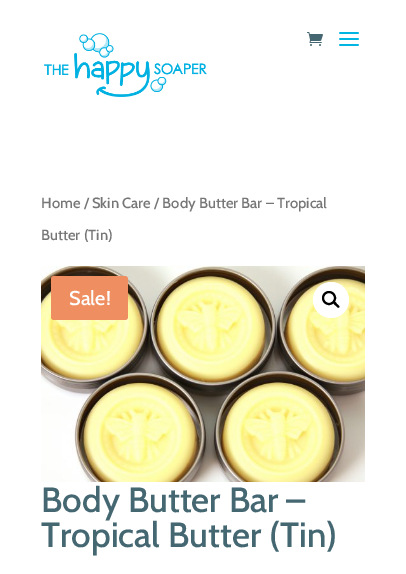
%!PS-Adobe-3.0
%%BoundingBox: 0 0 406 574
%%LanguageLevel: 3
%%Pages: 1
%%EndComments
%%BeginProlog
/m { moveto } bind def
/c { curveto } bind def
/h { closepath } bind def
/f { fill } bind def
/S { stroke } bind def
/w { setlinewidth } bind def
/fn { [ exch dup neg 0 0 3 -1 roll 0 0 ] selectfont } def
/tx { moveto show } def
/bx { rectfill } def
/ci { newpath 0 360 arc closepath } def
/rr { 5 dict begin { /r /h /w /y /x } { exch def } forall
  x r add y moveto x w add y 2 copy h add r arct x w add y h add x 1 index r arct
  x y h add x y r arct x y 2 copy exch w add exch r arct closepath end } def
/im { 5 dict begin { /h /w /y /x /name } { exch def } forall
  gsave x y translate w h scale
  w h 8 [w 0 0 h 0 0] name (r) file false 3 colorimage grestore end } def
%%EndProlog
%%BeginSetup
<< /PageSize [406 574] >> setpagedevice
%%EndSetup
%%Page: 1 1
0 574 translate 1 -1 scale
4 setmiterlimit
1 setgray
0 0 406 574 bx
(image0.raw) 44 33 163 64 im
(image1.raw) 307 32 16 14 im
(image2.raw) 339 32 20 14 im
/Cabin-Medium 14.75 fn
0.463 setgray
(Home / Skin Care / Body Butter Bar – Tropical) 41 208 tx
(Butter \(Tin\)) 41 240 tx
(image3.raw) 41 266 324 216 im
1 setgray
331 300 18 ci f
0 setgray
2 w
329 298 6 ci S
333.5 302 m 335 300.5 336.5 303.5 337 304 c 337.5 304.5 340.5 306.5 339 307.5 c 338 308.5 336.5 306 335.5 305.5 c 335 305 332.5 303 333.5 302 c h f
0.937 0.561 0.38 setrgbcolor
51 276 77 44 3 rr f
/Cabin-Medium 20 fn
1 setgray
(Sale!) 69 305 tx
/Cabin-Medium 35 fn
0.267 0.404 0.443 setrgbcolor
(Body Butter Bar –) 41 512 tx
(Tropical Butter \(Tin\)) 41 547 tx
showpage
%%EOF
